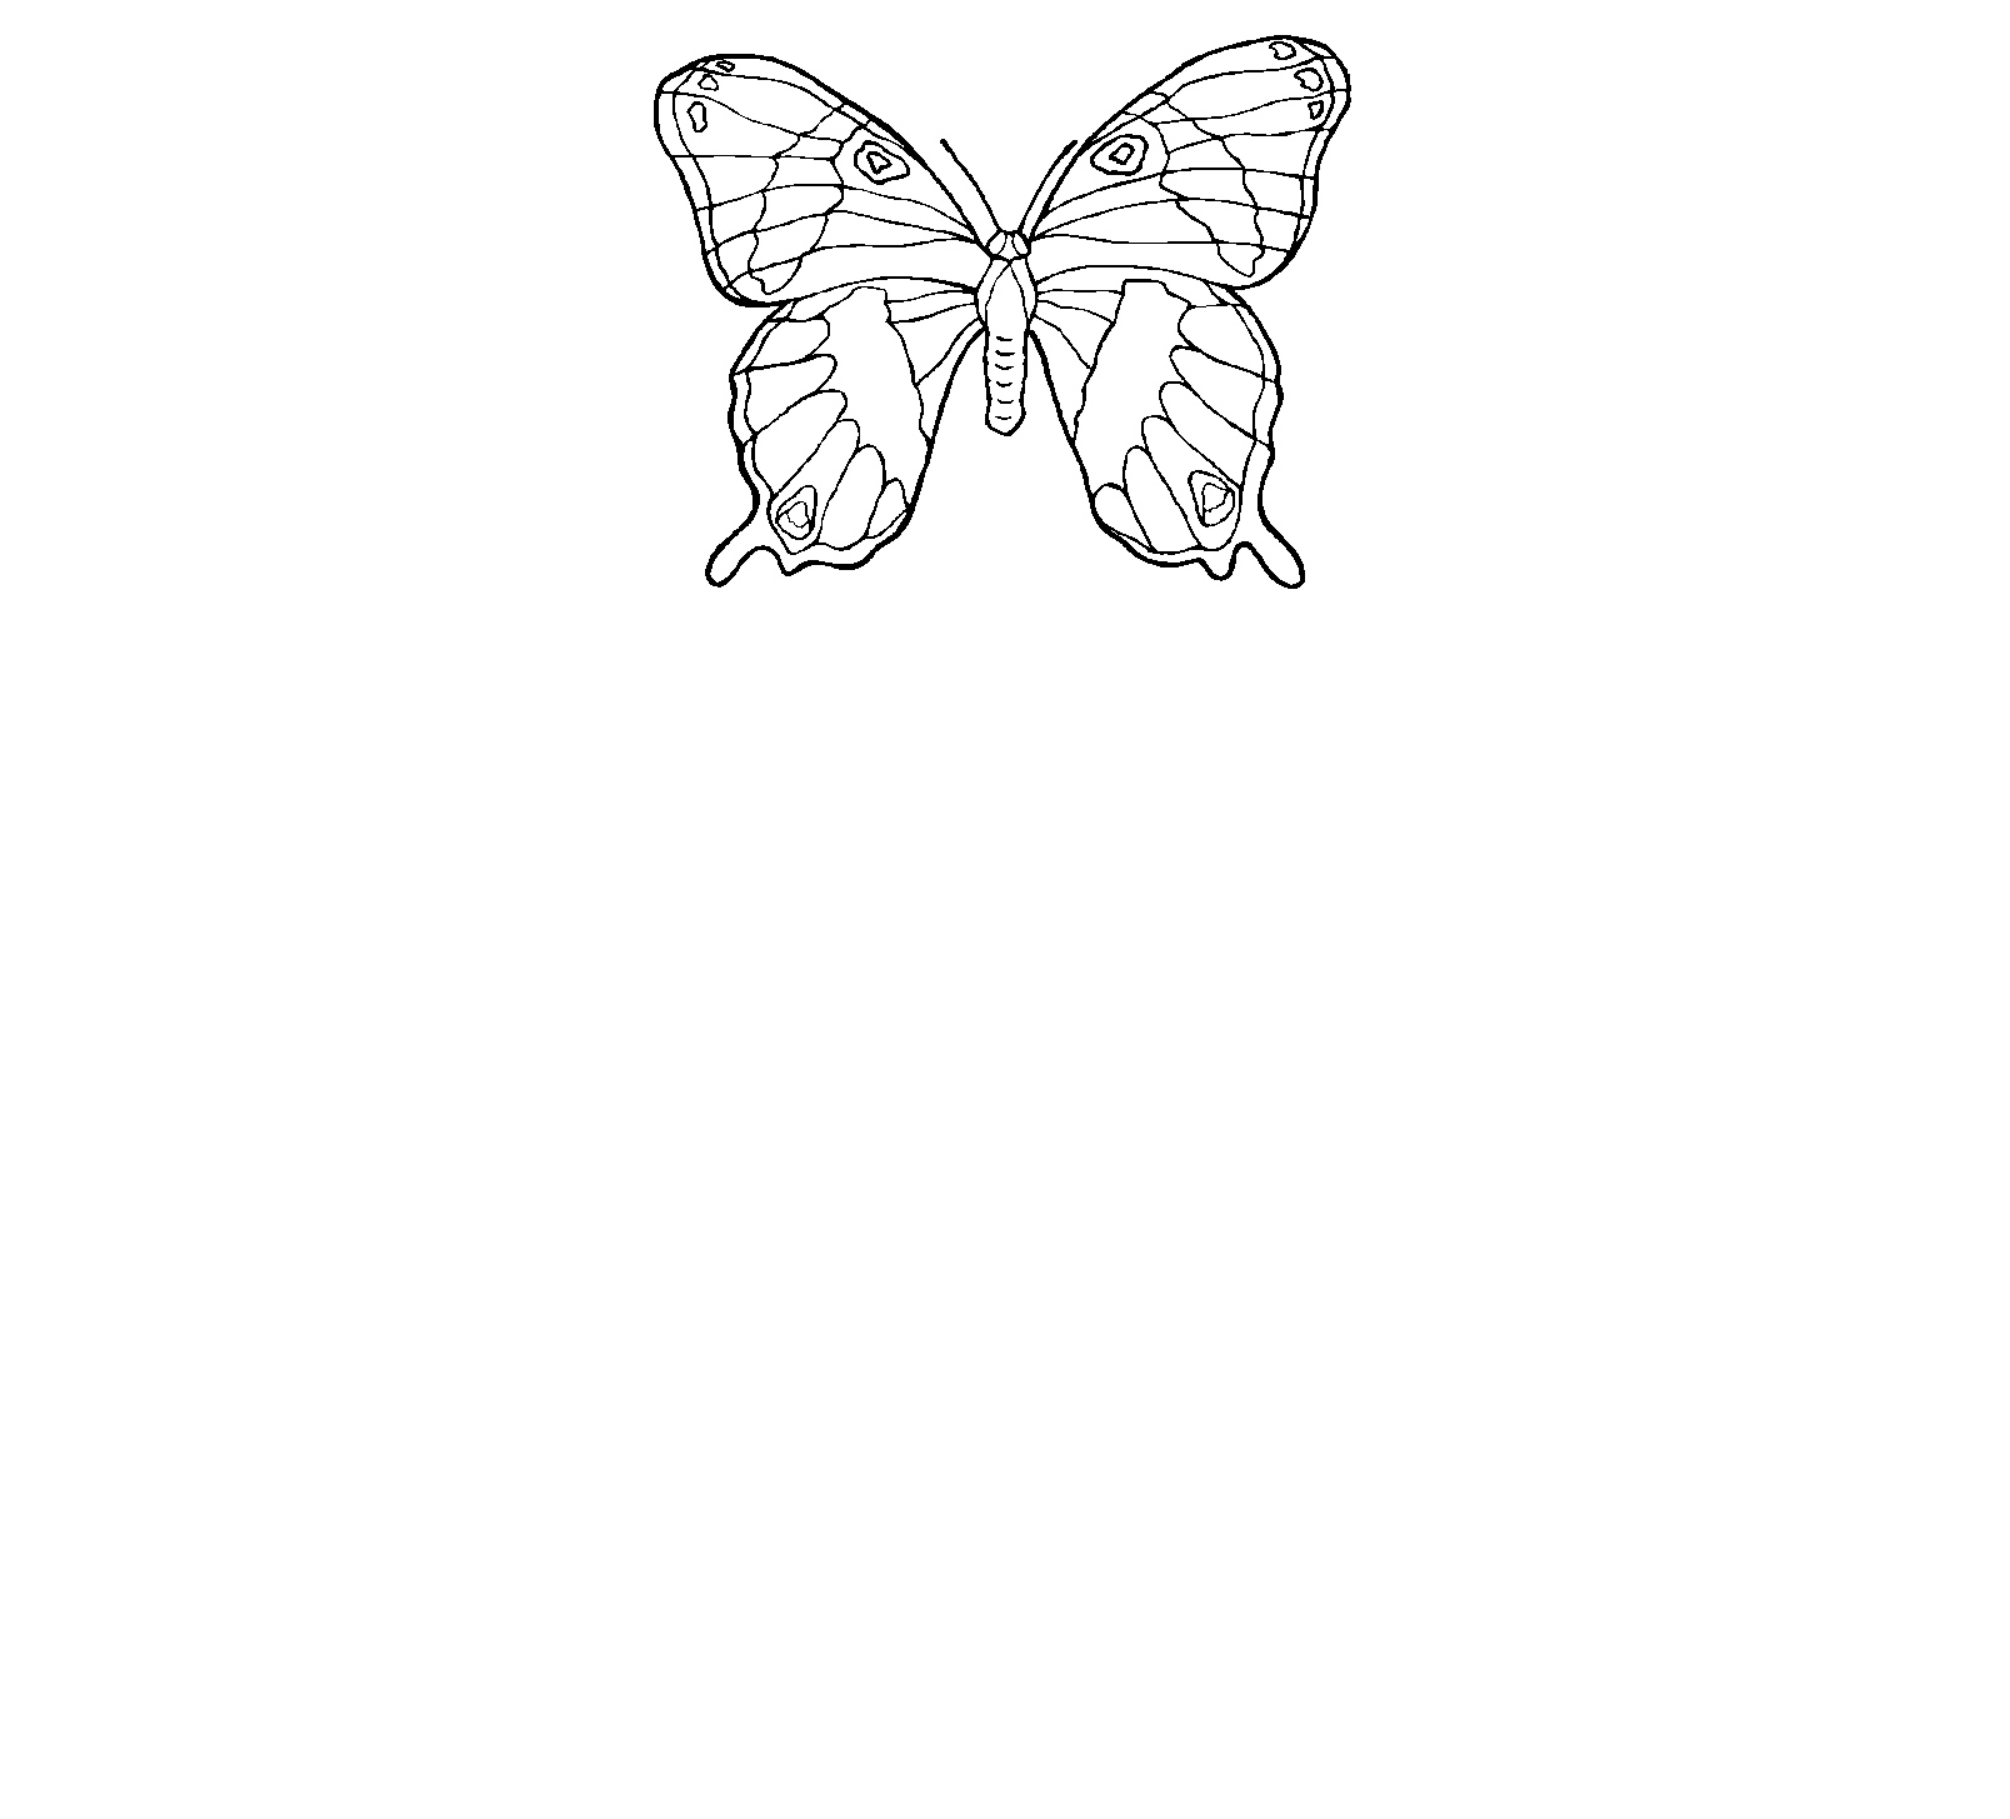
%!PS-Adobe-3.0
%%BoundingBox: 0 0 2010 1819
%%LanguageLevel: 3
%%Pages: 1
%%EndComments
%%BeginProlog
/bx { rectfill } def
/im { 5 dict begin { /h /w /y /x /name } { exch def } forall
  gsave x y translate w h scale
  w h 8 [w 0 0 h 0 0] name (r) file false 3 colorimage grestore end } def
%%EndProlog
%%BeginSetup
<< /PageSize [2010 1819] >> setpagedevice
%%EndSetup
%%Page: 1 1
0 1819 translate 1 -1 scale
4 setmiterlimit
1 setgray
0 0 2010 1819 bx
(image0.raw) 653 34 699 555 im
showpage
%%EOF
